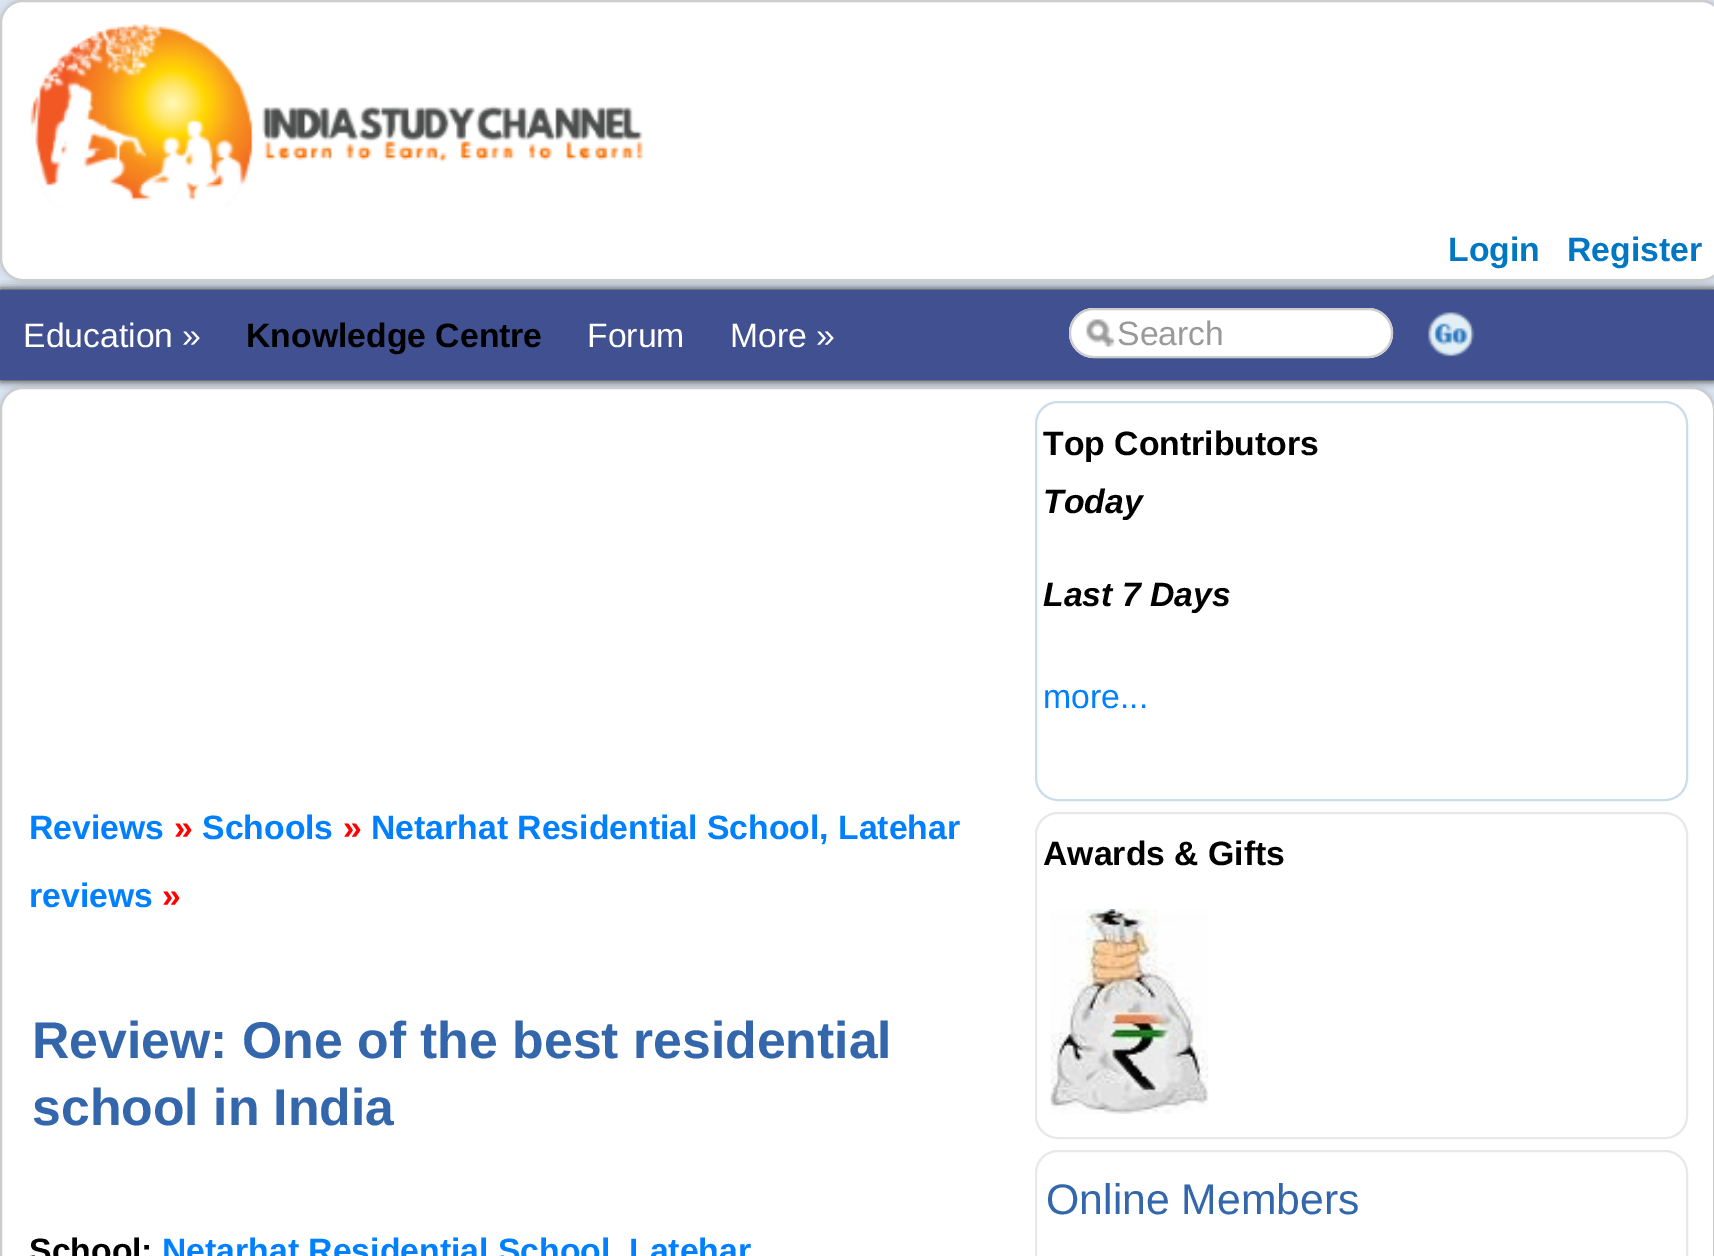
%!PS-Adobe-3.0
%%BoundingBox: 0 0 1714 1256
%%LanguageLevel: 3
%%Pages: 1
%%EndComments
%%BeginProlog
/f { fill } bind def
/S { stroke } bind def
/q { gsave } bind def
/Q { grestore } bind def
/w { setlinewidth } bind def
/fn { [ exch dup neg 0 0 3 -1 roll 0 0 ] selectfont } def
/tx { moveto show } def
/bx { rectfill } def
/al { dup .setfillconstantalpha .setstrokeconstantalpha } def
/rr { 5 dict begin { /r /h /w /y /x } { exch def } forall
  x r add y moveto x w add y 2 copy h add r arct x w add y h add x 1 index r arct
  x y h add x y r arct x y 2 copy exch w add exch r arct closepath end } def
/sh { 12 dict begin { /a /b /q /h /w /y /x } { exch def } forall gsave /was 0 def
  9 -2 -9 { dup b mul 4 div /e exch def 1 sub .425 mul 2.718 exch exp 1 add a .99 .min exch div /now exch def
    1 1 now sub 1 was sub div sub al /was now def
    w h .min e 2 mul add 0 gt { x e sub y e sub w e 2 mul add h e 2 mul add
      q e add b .6 mul add w h .min 2 div e add .min 0 .max rr fill } if } for grestore end } def
/im { 5 dict begin { /h /w /y /x /name } { exch def } forall
  gsave x y translate w h scale
  w h 8 [w 0 0 h 0 0] name (r) file false 3 colorimage grestore end } def
%%EndProlog
%%BeginSetup
<< /PageSize [1714 1256] /PageUsesTransparency true >> setpagedevice
%%EndSetup
%%Page: 1 1
0 .pushpdf14devicefilter
0 1256 translate 1 -1 scale
4 setmiterlimit
0.863 0.902 0.957 setrgbcolor
0 0 1714 1256 bx
0 setgray
0 290 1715 90 0 4.5 1 sh
0.251 0.314 0.565 setrgbcolor
0 290 1714 90 bx
0.196 setgray
0 0 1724 281 23 4.5 0.18 sh
1 setgray
1 1 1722 279 22 rr q f Q
0.8 setgray
2 w
S
(image0.raw) 30 24 614 183 im
/LiberationSans-Bold 33.75 fn
0 0.467 0.761 setrgbcolor
(Login) 1448 261 tx
(Register) 1567 261 tx
/LiberationSans-Regular 33.75 fn
1 setgray
(Education ») 23 347 tx
/LiberationSans-Bold 33.75 fn
0 setgray
(Knowledge Centre) 246 347 tx
/LiberationSans-Regular 33.75 fn
1 setgray
(Forum) 587 347 tx
(More ») 730 347 tx
1069 308 324 50 25 rr f
(image1.raw) 1086 319 29 28 im
0.8 setgray
1070 309 322 48 24 rr S
0.6 setgray
(Search) 1117 345 tx
(image2.raw) 1428 312 47 45 im
0.196 setgray
0 387 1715 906 23 4.5 0.18 sh
1 setgray
1 388 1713 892 22 rr q f Q
0.8 setgray
S
/LiberationSans-Bold 33.75 fn
0 0.502 1 setrgbcolor
(Reviews) 29 839 tx
1 0 0 setrgbcolor
(») 174 839 tx
0 0.502 1 setrgbcolor
(Schools) 202 839 tx
1 0 0 setrgbcolor
(») 343 839 tx
0 0.502 1 setrgbcolor
(Netarhat Residential School, Latehar) 371 839 tx
(reviews) 29 907 tx
1 0 0 setrgbcolor
(») 162 907 tx
/LiberationSans-Bold 51.75 fn
0.2 0.4 0.667 setrgbcolor
(Review: One of the best residential) 32 1058 tx
(school in India) 32 1125 tx
/LiberationSans-Bold 33.75 fn
0 setgray
(School:) 29 1262 tx
0 0.502 1 setrgbcolor
(Netarhat Residential School, Latehar) 162 1262 tx
0.792 0.867 0.918 setrgbcolor
1036 402 651 398 22 rr S
0 setgray
(Top Contributors) 1043 455 tx
/LiberationSans-BoldItalic 33.75 fn
(Today) 1043 513 tx
(Last 7 Days) 1043 606 tx
/LiberationSans-Regular 33.75 fn
0 0.502 1 setrgbcolor
(more...) 1043 708 tx
0.91 setgray
1036 813 651 325 22 rr S
/LiberationSans-Bold 33.75 fn
0 setgray
(Awards & Gifts) 1043 865 tx
(image3.raw) 1050 909 159 205 im
0.91 setgray
1036 1151 651 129 22 rr S
/LiberationSans-Regular 42.75 fn
0.2 0.4 0.667 setrgbcolor
(Online Members) 1046 1214 tx
.poppdf14devicefilter showpage
%%EOF
